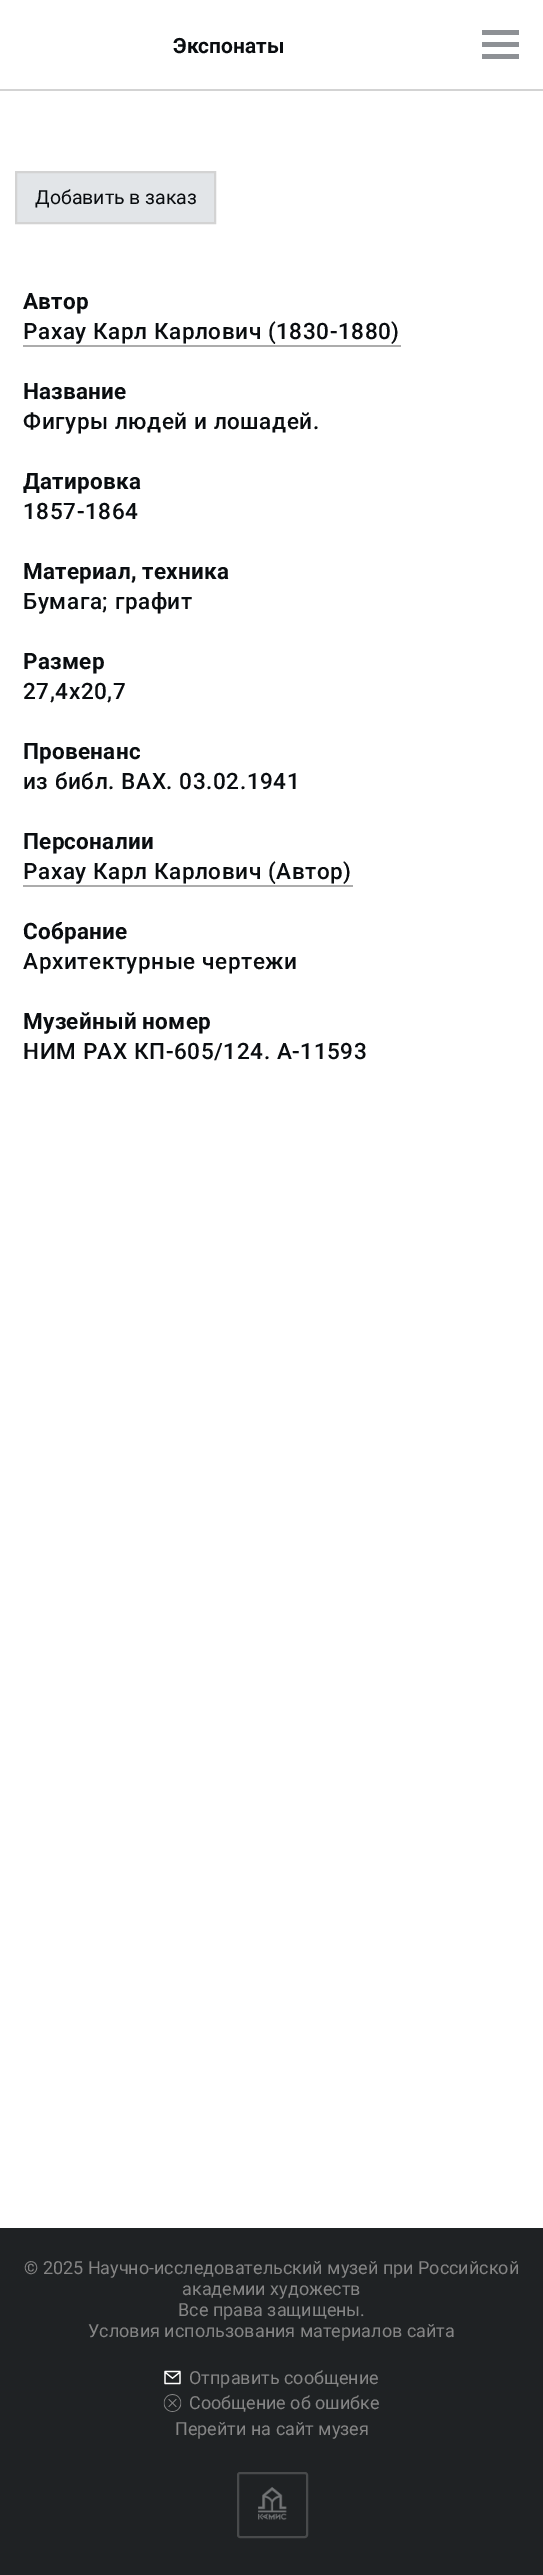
%!PS-Adobe-3.0
%%BoundingBox: 0 0 543 2575
%%LanguageLevel: 3
%%Pages: 1
%%EndComments
%%BeginProlog
/m { moveto } bind def
/l { lineto } bind def
/h { closepath } bind def
/f { fill } bind def
/S { stroke } bind def
/q { gsave } bind def
/Q { grestore } bind def
/w { setlinewidth } bind def
/fn { [ exch dup neg 0 0 3 -1 roll 0 0 ] selectfont } def
/tx { moveto show } def
/bx { rectfill } def
/rr { 5 dict begin { /r /h /w /y /x } { exch def } forall
  x r add y moveto x w add y 2 copy h add r arct x w add y h add x 1 index r arct
  x y h add x y r arct x y 2 copy exch w add exch r arct closepath end } def
/im { 5 dict begin { /h /w /y /x /name } { exch def } forall
  gsave x y translate w h scale
  w h 8 [w 0 0 h 0 0] name (r) file false 3 colorimage grestore end } def
%%EndProlog
%%BeginSetup
<< /PageSize [543 2575] >> setpagedevice
%%EndSetup
%%Page: 1 1
0 2575 translate 1 -1 scale
4 setmiterlimit
1 setgray
0 0 543 2575 bx
0.827 setgray
0 89 543 2 bx
/Roboto-Bold 21 fn
0.039 0.051 0.063 setrgbcolor
(Экспонаты) 173 53 tx
0.557 0.569 0.584 setrgbcolor
482 30 37 5 bx
482 42 37 5 bx
482 54 37 5 bx
0.886 0.898 0.91 setrgbcolor
16 172 m 215 172 l 215 223 l 16 223 l h q f Q
0.827 setgray
2 w
S
/Roboto-Regular 19.5 fn
0.039 0.051 0.063 setrgbcolor
(Добавить в заказ) 35 204 tx
/Roboto-Bold 22.5 fn
23 309 m 0.25 0 (Автор) ashow
/Roboto-Medium 22.5 fn
23 339 m 0.6 0 (Рахау Карл Карлович \(1830-1880\)) ashow
0.675 setgray
23 345 378 2 bx
/Roboto-Bold 22.5 fn
0.039 0.051 0.063 setrgbcolor
23 399 m 0.25 0 (Название) ashow
/Roboto-Medium 22.5 fn
23 429 m 0.6 0 (Фигуры людей и лошадей.) ashow
q
23 287 498 810 rectclip
/Roboto-Bold 22.5 fn
23 489 m 0.25 0 (Датировка) ashow
Q
23 519 m 0.6 0 (1857-1864) ashow
/Roboto-Bold 22.5 fn
23 579 m 0.25 0 (Материал, техника) ashow
/Roboto-Medium 22.5 fn
23 609 m 0.6 0 (Бумага; графит) ashow
/Roboto-Bold 22.5 fn
23 669 m 0.25 0 (Размер) ashow
/Roboto-Medium 22.5 fn
23 699 m 0.6 0 (27,4х20,7) ashow
/Roboto-Bold 22.5 fn
23 759 m 0.25 0 (Провенанс) ashow
/Roboto-Medium 22.5 fn
23 789 m 0.6 0 (из библ. ВАХ. 03.02.1941) ashow
/Roboto-Bold 22.5 fn
23 849 m 0.25 0 (Персоналии) ashow
/Roboto-Medium 22.5 fn
23 879 m 0.6 0 (Рахау Карл Карлович \(Автор\)) ashow
0.675 setgray
23 885 330 2 bx
/Roboto-Bold 22.5 fn
0.039 0.051 0.063 setrgbcolor
23 939 m 0.25 0 (Собрание) ashow
/Roboto-Medium 22.5 fn
23 969 m 0.6 0 (Архитектурные чертежи) ashow
/Roboto-Bold 22.5 fn
23 1029 m 0.25 0 (Музейный номер) ashow
/Roboto-Medium 22.5 fn
23 1059 m 0.6 0 (НИМ РАХ КП-605/124. А-11593) ashow
0.122 0.133 0.141 setrgbcolor
0 2228 543 347 bx
/Roboto-Regular 18 fn
0.522 setgray
(© 2025 Научно-исследовательский музей при Российской) 24 2274 tx
(академии художеств) 182 2295 tx
(Все права защищены.) 178 2316 tx
(Условия использования материалов сайта) 88 2337 tx
(image0.raw) 164 2370 17 15 im
(Отправить сообщение) 189 2384 tx
(image1.raw) 163 2394 19 18 im
(Сообщение об ошибке) 189 2409 tx
(Перейти на сайт музея) 175 2435 tx
0.282 0.29 0.294 setrgbcolor
238 2473 69 64 2 rr S
(image2.raw) 258 2487 29 33 im
showpage
%%EOF
